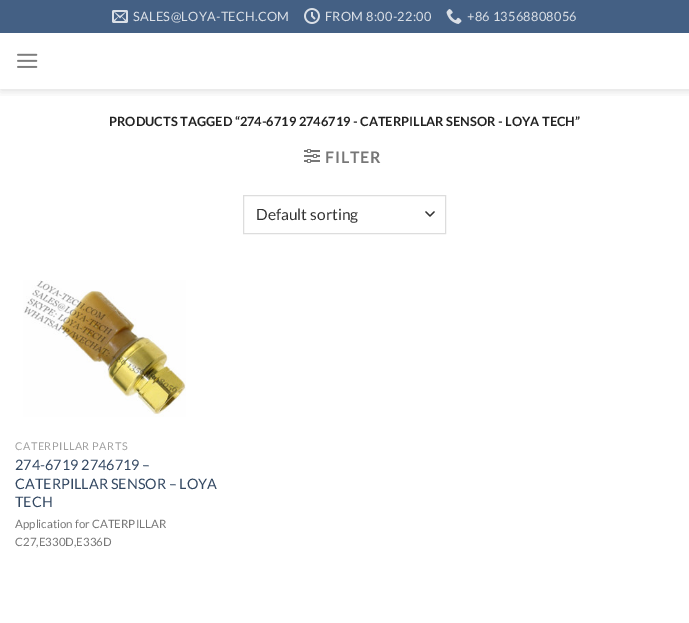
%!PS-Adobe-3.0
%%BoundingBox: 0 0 689 623
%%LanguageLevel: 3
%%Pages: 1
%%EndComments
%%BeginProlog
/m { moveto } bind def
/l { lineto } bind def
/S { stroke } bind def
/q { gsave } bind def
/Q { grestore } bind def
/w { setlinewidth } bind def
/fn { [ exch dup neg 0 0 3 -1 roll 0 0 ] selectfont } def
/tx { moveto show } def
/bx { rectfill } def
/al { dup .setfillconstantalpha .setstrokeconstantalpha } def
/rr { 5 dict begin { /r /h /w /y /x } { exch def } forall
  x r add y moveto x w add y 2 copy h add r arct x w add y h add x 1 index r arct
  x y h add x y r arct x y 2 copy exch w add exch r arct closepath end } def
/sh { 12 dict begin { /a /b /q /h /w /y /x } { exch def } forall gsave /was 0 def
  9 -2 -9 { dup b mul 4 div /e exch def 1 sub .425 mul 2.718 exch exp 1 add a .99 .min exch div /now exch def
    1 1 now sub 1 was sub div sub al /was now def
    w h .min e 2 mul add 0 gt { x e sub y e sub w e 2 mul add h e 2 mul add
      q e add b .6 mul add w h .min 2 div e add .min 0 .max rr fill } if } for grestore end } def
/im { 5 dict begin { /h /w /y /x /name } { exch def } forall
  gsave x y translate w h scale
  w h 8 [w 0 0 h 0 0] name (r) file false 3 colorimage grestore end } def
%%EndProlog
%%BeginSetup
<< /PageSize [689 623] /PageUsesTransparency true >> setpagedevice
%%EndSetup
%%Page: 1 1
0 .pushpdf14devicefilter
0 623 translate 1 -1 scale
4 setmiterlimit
1 setgray
0 0 689 623 bx
q
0 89 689 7 rectclip
0 setgray
1 1 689 89 0 5 0.15 sh
Q
0.267 0.376 0.518 setrgbcolor
0 0 689 33 bx
(image0.raw) 112 10 16 13 im
/Lato-Regular 12.8 fn
0.855 0.875 0.902 setrgbcolor
133 21 m 0.25 0 (SALES@LOYA-TECH.COM) ashow
(image1.raw) 304 8 16 16 im
325 21 m 0.25 0 (FROM 8:00-22:00) ashow
(image2.raw) 446 9 16 15 im
467 21 m 0.25 0 (+86 13568808056) ashow
(image3.raw) 17 53 21 15 im
/Lato-Bold 12.8 fn
0.133 setgray
(PRODUCTS TAGGED “274-6719 2746719 - CATERPILLAR SENSOR - LOYA TECH”) 109 126 tx
(image4.raw) 304 149 16 14 im
/Lato-Bold 16 fn
0.467 setgray
325 163 m 0.75 0 (FILTER) ashow
0.2 setgray
1.3 w
1 setlinecap
1 setlinejoin
426 212 m 430 216 l 434 212 l S
0.867 setgray
1 w
0 setlinecap
0 setlinejoin
243.5 195.5 202 38 rectstroke
/Lato-Regular 15.5 fn
0.2 setgray
(Default sorting) 256 220 tx
(image5.raw) 23 280 163 137 im
/Lato-Regular 10.75 fn
0.627 setgray
15 450 m 0.5 0 (CATERPILLAR PARTS) ashow
/Lato-Regular 14.4 fn
0.2 0.282 0.384 setrgbcolor
(274-6719 2746719 –) 15 470 tx
(CATERPILLAR SENSOR – LOYA) 15 489 tx
(TECH) 15 507 tx
/Lato-Regular 11.5 fn
0.467 setgray
(Application for CATERPILLAR) 15 528 tx
(C27,E330D,E336D) 15 546 tx
.poppdf14devicefilter showpage
%%EOF
